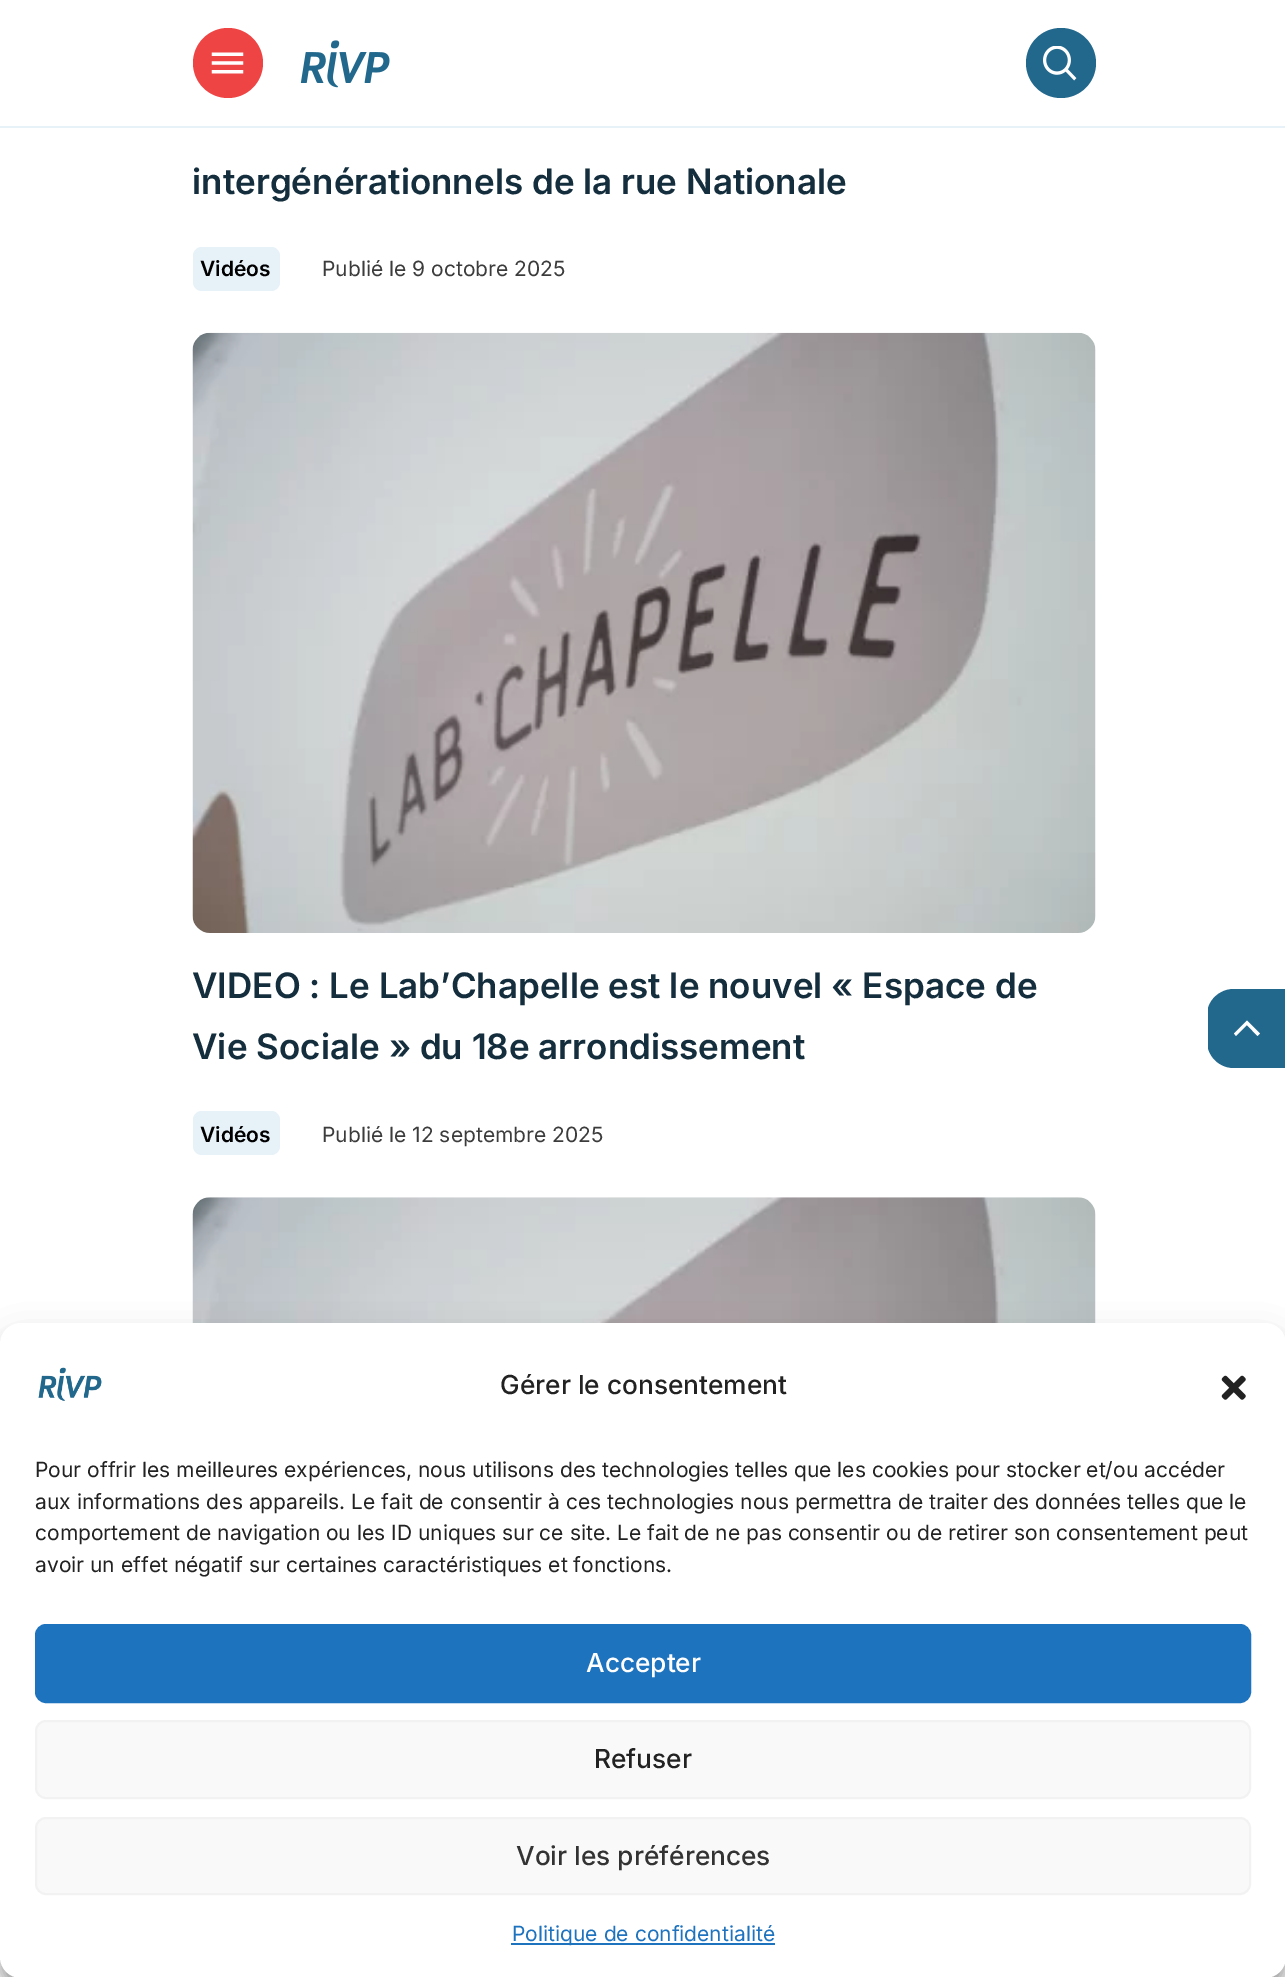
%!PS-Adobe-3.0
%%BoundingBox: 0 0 1285 1977
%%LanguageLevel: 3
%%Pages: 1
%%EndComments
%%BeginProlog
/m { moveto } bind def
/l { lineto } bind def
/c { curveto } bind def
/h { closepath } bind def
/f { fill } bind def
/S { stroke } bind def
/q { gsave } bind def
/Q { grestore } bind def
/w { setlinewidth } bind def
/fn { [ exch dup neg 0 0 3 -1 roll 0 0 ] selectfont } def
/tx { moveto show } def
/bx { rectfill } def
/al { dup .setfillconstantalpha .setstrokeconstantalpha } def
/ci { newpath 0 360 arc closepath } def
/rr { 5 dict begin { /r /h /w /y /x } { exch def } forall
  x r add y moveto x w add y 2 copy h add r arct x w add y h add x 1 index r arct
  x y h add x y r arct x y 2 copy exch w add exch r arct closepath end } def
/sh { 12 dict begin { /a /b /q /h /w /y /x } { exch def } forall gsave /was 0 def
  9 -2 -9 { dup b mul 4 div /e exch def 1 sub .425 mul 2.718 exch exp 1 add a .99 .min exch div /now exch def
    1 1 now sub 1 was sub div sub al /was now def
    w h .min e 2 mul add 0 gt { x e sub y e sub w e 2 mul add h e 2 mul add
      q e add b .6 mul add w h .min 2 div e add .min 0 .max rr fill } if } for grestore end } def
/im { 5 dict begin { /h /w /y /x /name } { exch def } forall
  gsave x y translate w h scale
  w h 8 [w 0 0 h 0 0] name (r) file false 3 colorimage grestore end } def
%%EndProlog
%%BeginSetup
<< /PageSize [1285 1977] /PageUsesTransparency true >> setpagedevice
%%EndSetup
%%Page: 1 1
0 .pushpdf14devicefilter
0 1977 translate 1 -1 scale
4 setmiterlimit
1 setgray
0 0 1285 1977 bx
0.902 0.945 0.973 setrgbcolor
0 126 1285 2 bx
0.937 0.267 0.267 setrgbcolor
228 63 35 ci f
(image0.raw) 211 52 33 22 im
(image1.raw) 300 40 90 48 im
0.133 0.408 0.549 setrgbcolor
1061 63 35 ci f
(image2.raw) 1043 46 34 35 im
/Inter-SemiBold 35 fn
0.078 0.18 0.239 setrgbcolor
(intergénérationnels de la rue Nationale) 192 194 tx
0.902 0.945 0.973 setrgbcolor
193 247 87 44 9 rr f
/Inter-SemiBold 21 fn
0 setgray
(Vidéos) 200 276 tx
/Inter-Regular 21 fn
0.235 setgray
(Publié le 9 octobre 2025) 322 276 tx
(image3.raw) 192 332 904 601 im
/Inter-SemiBold 35 fn
0.078 0.18 0.239 setrgbcolor
(VIDEO : Le Lab’Chapelle est le nouvel « Espace de) 192 998 tx
(Vie Sociale » du 18e arrondissement) 192 1059 tx
0.902 0.945 0.973 setrgbcolor
193 1111 87 44 9 rr f
/Inter-SemiBold 21 fn
0 setgray
(Vidéos) 200 1142 tx
/Inter-Regular 21 fn
0.235 setgray
(Publié le 12 septembre 2025) 322 1142 tx
(image4.raw) 192 1197 904 126 im
q
1208 989 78 79 rectclip
0.133 0.408 0.549 setrgbcolor
1234 1068 m 1219 1068 1207 1056 1207 1041 c 1207 1015 l 1207 1001 1219 989 1234 989 c 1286 989 l 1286 1068 l h f
Q
1 setgray
1234 1033.5 m 1247 1020.5 l 1260 1033.5 l 1257.5 1036 l 1247 1025 l 1236 1036 l h f
0 setgray
0 1334 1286 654 21 5 0.23 sh
0 1341 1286 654 21 17.5 0.19 sh
1 setgray
0 1323 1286 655 21 rr f
(image5.raw) 38 1367 64 34 im
/Inter-Medium 26.25 fn
0.133 setgray
(Gérer le consentement) 500 1394 tx
(image6.raw) 1221 1375 25 25 im
/Inter-Regular 21 fn
(Pour offrir les meilleures expériences, nous utilisons des technologies telles que les cookies pour stocker et/ou accéder) 35 1477 tx
(aux informations des appareils. Le fait de consentir à ces technologies nous permettra de traiter des données telles que le) 35 1509 tx
(comportement de navigation ou les ID uniques sur ce site. Le fait de ne pas consentir ou de retirer son consentement peut) 35 1540 tx
(avoir un effet négatif sur certaines caractéristiques et fonctions.) 35 1572 tx
0.118 0.451 0.745 setrgbcolor
36 1625 1214 77 10 rr q f Q
2 w
S
/Inter-Medium 26.25 fn
1 setgray
(Accepter) 586 1672 tx
0.976 setgray
36 1721 1214 77 10 rr q f Q
0.949 setgray
S
0.133 setgray
(Refuser) 594 1768 tx
0.976 setgray
36 1818 1214 76 10 rr q f Q
0.949 setgray
S
0.2 setgray
(Voir les préférences) 516 1865 tx
0.118 0.451 0.745 setrgbcolor
511 1943 264 2 bx
/Inter-Regular 21 fn
(Politique de confidentialité) 512 1941 tx
.poppdf14devicefilter showpage
%%EOF
